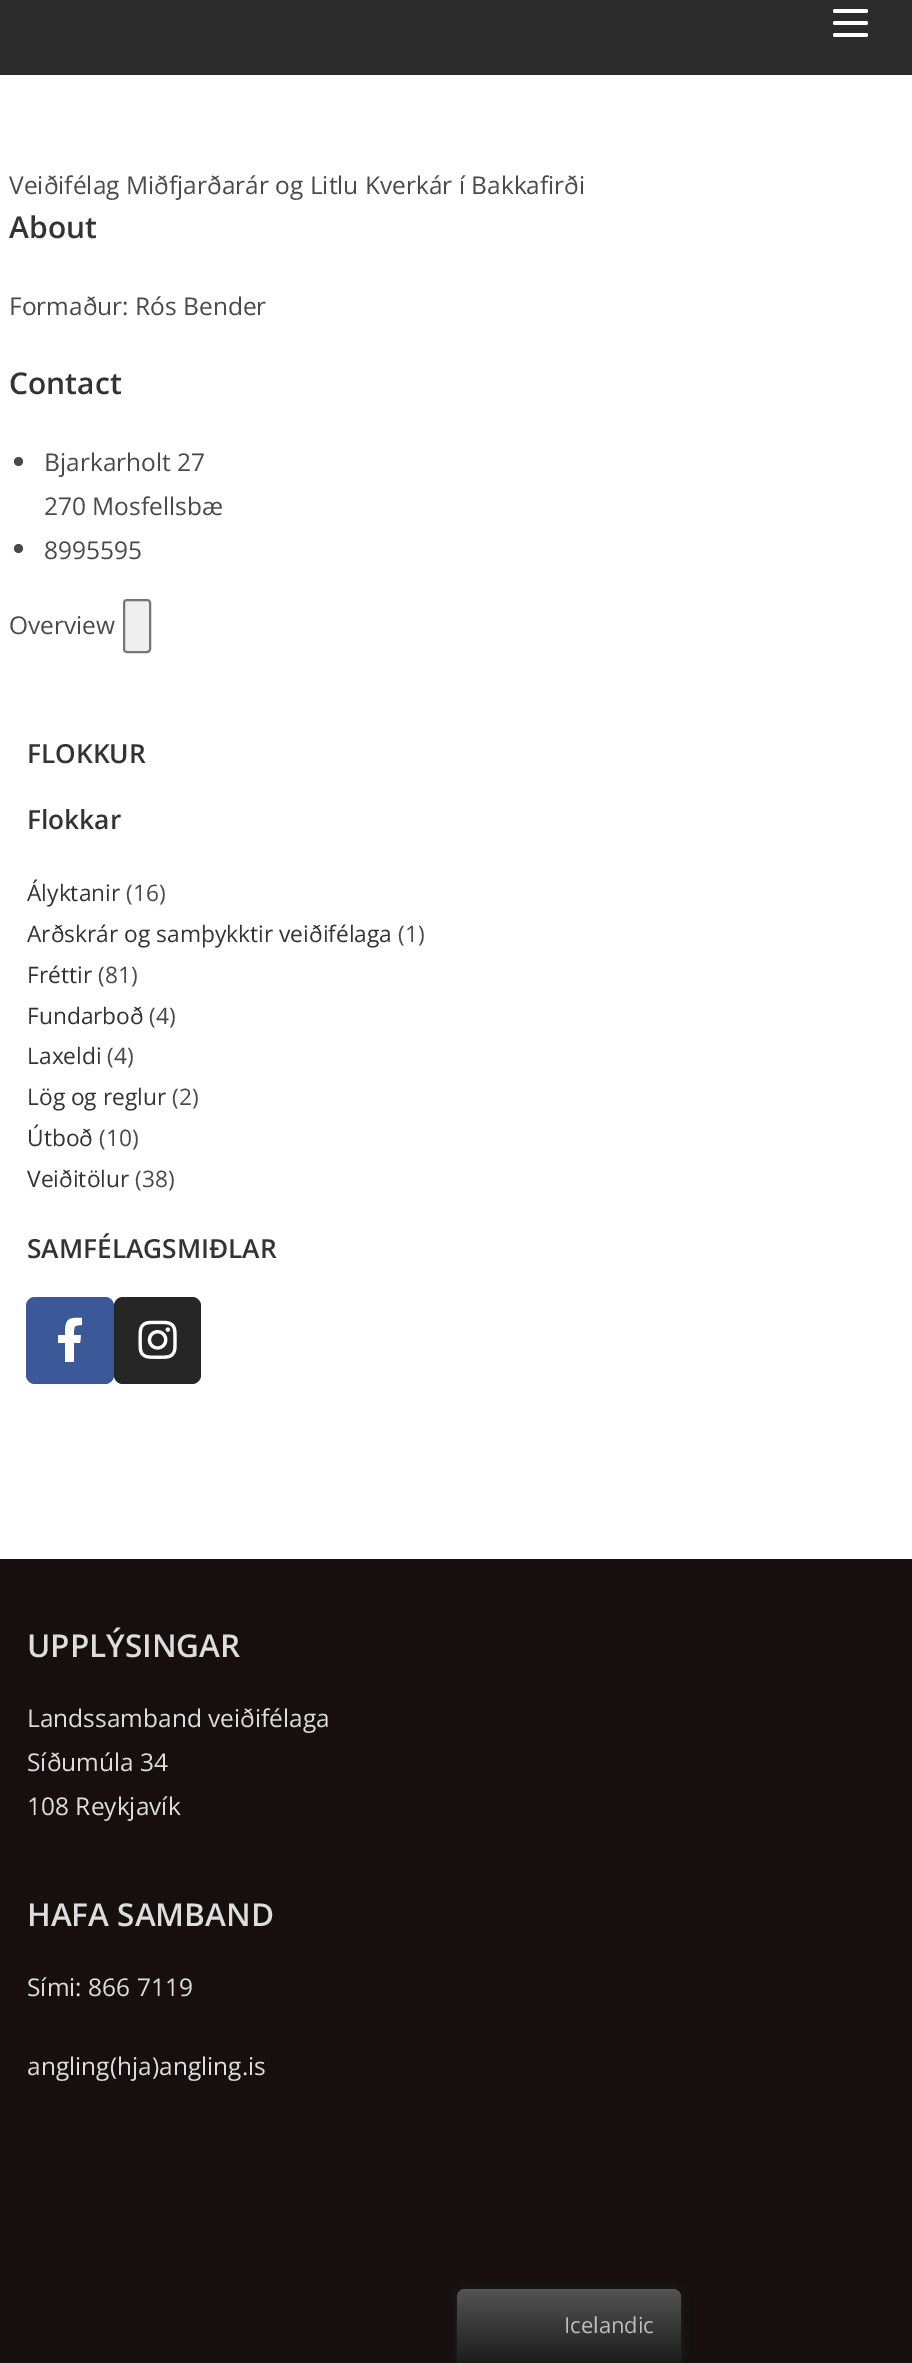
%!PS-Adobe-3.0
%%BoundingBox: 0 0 912 2363
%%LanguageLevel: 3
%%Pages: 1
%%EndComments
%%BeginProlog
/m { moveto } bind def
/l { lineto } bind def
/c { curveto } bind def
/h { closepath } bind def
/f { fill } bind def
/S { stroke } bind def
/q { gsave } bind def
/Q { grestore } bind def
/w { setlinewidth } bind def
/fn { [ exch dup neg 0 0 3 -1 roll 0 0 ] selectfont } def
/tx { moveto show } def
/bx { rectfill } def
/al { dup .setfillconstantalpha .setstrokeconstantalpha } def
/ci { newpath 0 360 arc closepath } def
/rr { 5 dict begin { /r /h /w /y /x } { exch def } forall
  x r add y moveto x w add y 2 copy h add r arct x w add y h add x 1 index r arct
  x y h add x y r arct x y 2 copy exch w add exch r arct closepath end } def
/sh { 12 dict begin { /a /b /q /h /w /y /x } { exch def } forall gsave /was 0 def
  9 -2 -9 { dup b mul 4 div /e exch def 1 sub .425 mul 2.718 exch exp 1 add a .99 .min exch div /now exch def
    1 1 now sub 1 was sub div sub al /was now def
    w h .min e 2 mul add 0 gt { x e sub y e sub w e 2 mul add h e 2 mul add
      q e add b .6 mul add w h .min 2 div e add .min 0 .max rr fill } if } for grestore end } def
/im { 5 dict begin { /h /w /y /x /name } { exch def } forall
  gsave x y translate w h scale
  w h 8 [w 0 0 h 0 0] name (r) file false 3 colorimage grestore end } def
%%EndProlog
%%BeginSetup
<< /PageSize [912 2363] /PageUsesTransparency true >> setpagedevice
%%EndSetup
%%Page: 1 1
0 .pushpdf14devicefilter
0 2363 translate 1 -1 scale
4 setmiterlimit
1 setgray
0 0 912 2363 bx
0.169 setgray
0 0 912 75 bx
1 setgray
833 21 35 4 2 rr f
833 9 35 4 2 rr f
833 33 35 4 2 rr f
/OpenSans-Regular 24.5 fn
0.29 setgray
(Veiðifélag Miðfjarðarár og Litlu Kverkár í Bakkafirði) 9 194 tx
/OpenSans-SemiBold 30 fn
0.2 setgray
(About) 9 238 tx
/OpenSans-Regular 24.5 fn
0.29 setgray
(Formaður: Rós Bender) 9 315 tx
/OpenSans-SemiBold 30 fn
0.2 setgray
(Contact) 9 394 tx
0.29 setgray
18.5 461.5 4.5 ci f
/OpenSans-Regular 24.5 fn
(Bjarkarholt 27) 44 471 tx
(270 Mosfellsbæ) 44 515 tx
18.5 548.5 4.5 ci f
(8995595) 44 559 tx
(Overview) 9 634 tx
0.937 setgray
124 600 26 52 3 rr q f Q
0.463 setgray
2 w
S
/OpenSans-SemiBold 26.25 fn
0.2 setgray
(FLOKKUR) 27 763 tx
(Flokkar) 27 829 tx
/OpenSans-Regular 22.75 fn
(Ályktanir) 27 901 tx
0.29 setgray
(\(16\)) 126 901 tx
0.2 setgray
(Arðskrár og samþykktir veiðifélaga) 27 942 tx
0.29 setgray
(\(1\)) 398 942 tx
0.2 setgray
(Fréttir) 27 983 tx
0.29 setgray
(\(81\)) 98 983 tx
0.2 setgray
(Fundarboð) 27 1024 tx
0.29 setgray
(\(4\)) 149 1024 tx
0.2 setgray
(Laxeldi) 27 1064 tx
0.29 setgray
(\(4\)) 107 1064 tx
0.2 setgray
(Lög og reglur) 27 1105 tx
0.29 setgray
(\(2\)) 172 1105 tx
0.2 setgray
(Útboð) 27 1146 tx
0.29 setgray
(\(10\)) 99 1146 tx
0.2 setgray
(Veiðitölur) 27 1187 tx
0.29 setgray
(\(38\)) 135 1187 tx
/OpenSans-SemiBold 26.25 fn
0.2 setgray
(SAMFÉLAGSMIÐLAR) 27 1258 tx
0.231 0.349 0.596 setrgbcolor
26 1297 88 87 9 rr f
1 setgray
80 1343 m 74 1343 l 74 1362 l 65 1362 l 65 1343 l 58 1343 l 58 1335 l 65 1335 l 65 1320 67 1317 82 1318 c 82 1325 l 73 1325 74 1327 74 1335 c 81 1335 l h f
0.149 setgray
114 1297 87 87 9 rr f
(image0.raw) 138 1320 39 39 im
0.086 0.059 0.051 setrgbcolor
0 1559 912 804 bx
/OpenSans-SemiBold 31.5 fn
0.867 setgray
(UPPLÝSINGAR) 27 1657 tx
/OpenSans-Regular 24.5 fn
(Landssamband veiðifélaga) 27 1727 tx
(Síðumúla 34) 27 1771 tx
(108 Reykjavík) 27 1815 tx
/OpenSans-SemiBold 31.5 fn
(HAFA SAMBAND) 27 1926 tx
/OpenSans-Regular 24.5 fn
(Sími: 866 7119) 27 1996 tx
(angling\(hja\)angling.is) 27 2075 tx
0.129 setgray
457 2289 224 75 9 4.5 1 sh
q 466 2289 m 672 2289 l 677 2289 681 2293 681 2298 c 681 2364 l 457 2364 l 457 2298 l 457 2293 461 2289 466 2289 c h clip newpath
<< /ShadingType 2 /ColorSpace /DeviceRGB /Coords [569 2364 569 2289] /Extend [true true] /Function << /FunctionType 2 /Domain [0 1] /C0 [0.106 0.106 0.106] /C1 [0.329 0.329 0.329] /N 1 >> >> shfill Q
/OpenSans-Regular 22 fn
0.741 setgray
(Icelandic) 564 2333 tx
.poppdf14devicefilter showpage
%%EOF
